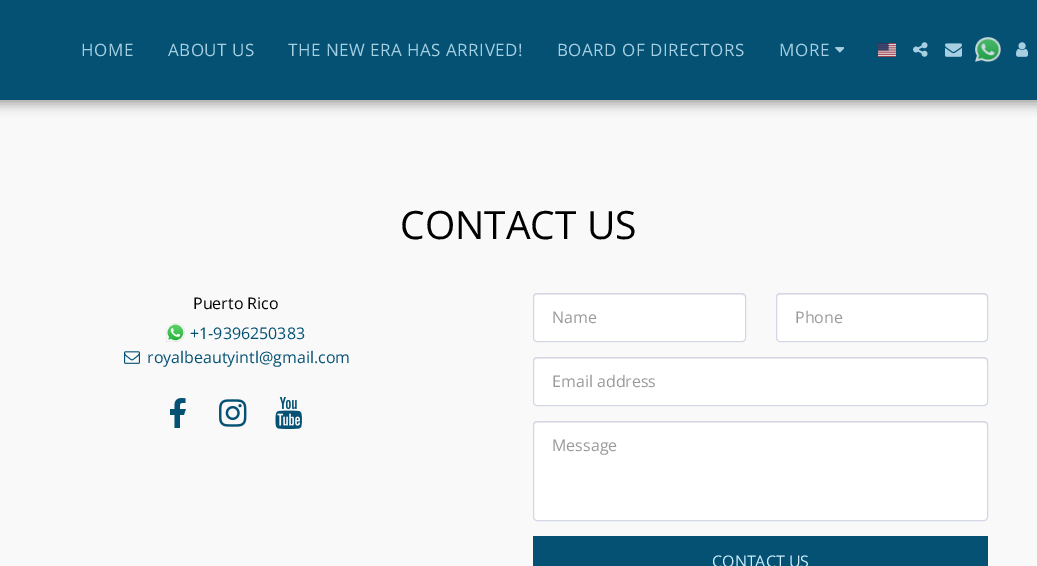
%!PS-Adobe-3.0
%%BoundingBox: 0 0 1037 566
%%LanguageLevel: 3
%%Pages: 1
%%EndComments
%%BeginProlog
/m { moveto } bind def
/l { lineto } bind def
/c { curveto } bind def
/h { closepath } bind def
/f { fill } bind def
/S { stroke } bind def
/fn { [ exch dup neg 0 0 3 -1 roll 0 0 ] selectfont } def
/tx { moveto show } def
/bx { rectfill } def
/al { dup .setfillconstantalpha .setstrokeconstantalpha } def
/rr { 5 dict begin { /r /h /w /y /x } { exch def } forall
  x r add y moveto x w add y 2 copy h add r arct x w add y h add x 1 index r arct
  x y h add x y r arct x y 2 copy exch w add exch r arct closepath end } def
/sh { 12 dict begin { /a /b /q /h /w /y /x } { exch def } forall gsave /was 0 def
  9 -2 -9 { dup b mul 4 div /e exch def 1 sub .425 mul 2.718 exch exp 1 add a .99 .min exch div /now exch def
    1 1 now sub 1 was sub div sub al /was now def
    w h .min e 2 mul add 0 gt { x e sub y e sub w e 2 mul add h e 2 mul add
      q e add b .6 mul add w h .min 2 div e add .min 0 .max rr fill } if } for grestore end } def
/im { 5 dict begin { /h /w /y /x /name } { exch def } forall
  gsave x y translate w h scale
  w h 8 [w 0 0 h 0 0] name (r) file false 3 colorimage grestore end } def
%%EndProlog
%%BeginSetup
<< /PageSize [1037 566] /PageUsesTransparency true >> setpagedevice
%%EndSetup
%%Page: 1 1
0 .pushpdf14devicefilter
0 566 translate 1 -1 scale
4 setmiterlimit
0.976 setgray
0 0 1037 566 bx
0 setgray
-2 0 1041 104 0 6 0.35 sh
0.016 0.318 0.455 setrgbcolor
0 0 1037 100 bx
/OpenSans-Regular 17 fn
0.651 0.812 0.886 setrgbcolor
81 56 m 0.5 0 (HOME) ashow
168 56 m 0.5 0 (ABOUT US) ashow
288 56 m 0.5 0 (THE NEW ERA HAS ARRIVED!) ashow
557 56 m 0.5 0 (BOARD OF DIRECTORS) ashow
779 56 m 0.5 0 (MORE) ashow
(image0.raw) 835 47 9 6 im
(image1.raw) 878 43 18 14 im
(image2.raw) 913 42 15 15 im
(image3.raw) 945 43 17 14 im
(image4.raw) 975 37 26 25 im
(image5.raw) 1016 42 12 15 im
/OpenSans-Regular 39 fn
0 setgray
(CONTACT US) 400 239 tx
/OpenSans-Regular 16 fn
(Puerto Rico) 193 309 tx
(image6.raw) 166 323 19 19 im
0.016 0.318 0.455 setrgbcolor
(+1-9396250383) 190 339 tx
(image7.raw) 124 351 16 13 im
(royalbeautyintl@gmail.com) 147 363 tx
(image8.raw) 170 398 16 30 im
(image9.raw) 219 399 28 28 im
(image10.raw) 275 397 27 32 im
1 setgray
533 293 213 49 4 rr f
0.925 setgray
537 295 m 742 295 l 744 295 745 296 745 298 c 745 297 l 745 295 744 294 742 294 c 537 294 l 535 294 534 295 534 297 c 534 298 l 534 296 535 295 537 295 c h f
0.831 0.843 0.898 setrgbcolor
533.5 293.5 212 48 3.5 rr S
0.6 setgray
(Name) 552 323 tx
1 setgray
776 293 212 49 4 rr f
0.925 setgray
780 295 m 984 295 l 986 295 987 296 987 298 c 987 297 l 987 295 986 294 984 294 c 780 294 l 778 294 777 295 777 297 c 777 298 l 777 296 778 295 780 295 c h f
0.831 0.843 0.898 setrgbcolor
776.5 293.5 211 48 3.5 rr S
0.6 setgray
(Phone) 795 323 tx
1 setgray
533 357 455 49 4 rr f
0.925 setgray
537 359 m 984 359 l 986 359 987 360 987 362 c 987 360 l 985 358 l 536 358 l 534 359 534 360 534 362 c 534 360 535 359 537 359 c h f
0.831 0.843 0.898 setrgbcolor
533.5 357.5 454 48 3.5 rr S
0.6 setgray
(Email address) 552 387 tx
1 setgray
533 421 455 100 4 rr f
0.925 setgray
537 423 m 984 423 l 986 423 987 424 987 426 c 987 424 l 985 422 l 536 422 l 534 423 534 424 534 426 c 534 424 535 423 537 423 c h f
0.831 0.843 0.898 setrgbcolor
533.5 421.5 454 99 3.5 rr S
0.6 setgray
(Message) 552 451 tx
0.016 0.318 0.455 setrgbcolor
533 536 455 30 bx
0.808 0.933 0.992 setrgbcolor
(CONTACT US) 712 567 tx
.poppdf14devicefilter showpage
%%EOF
